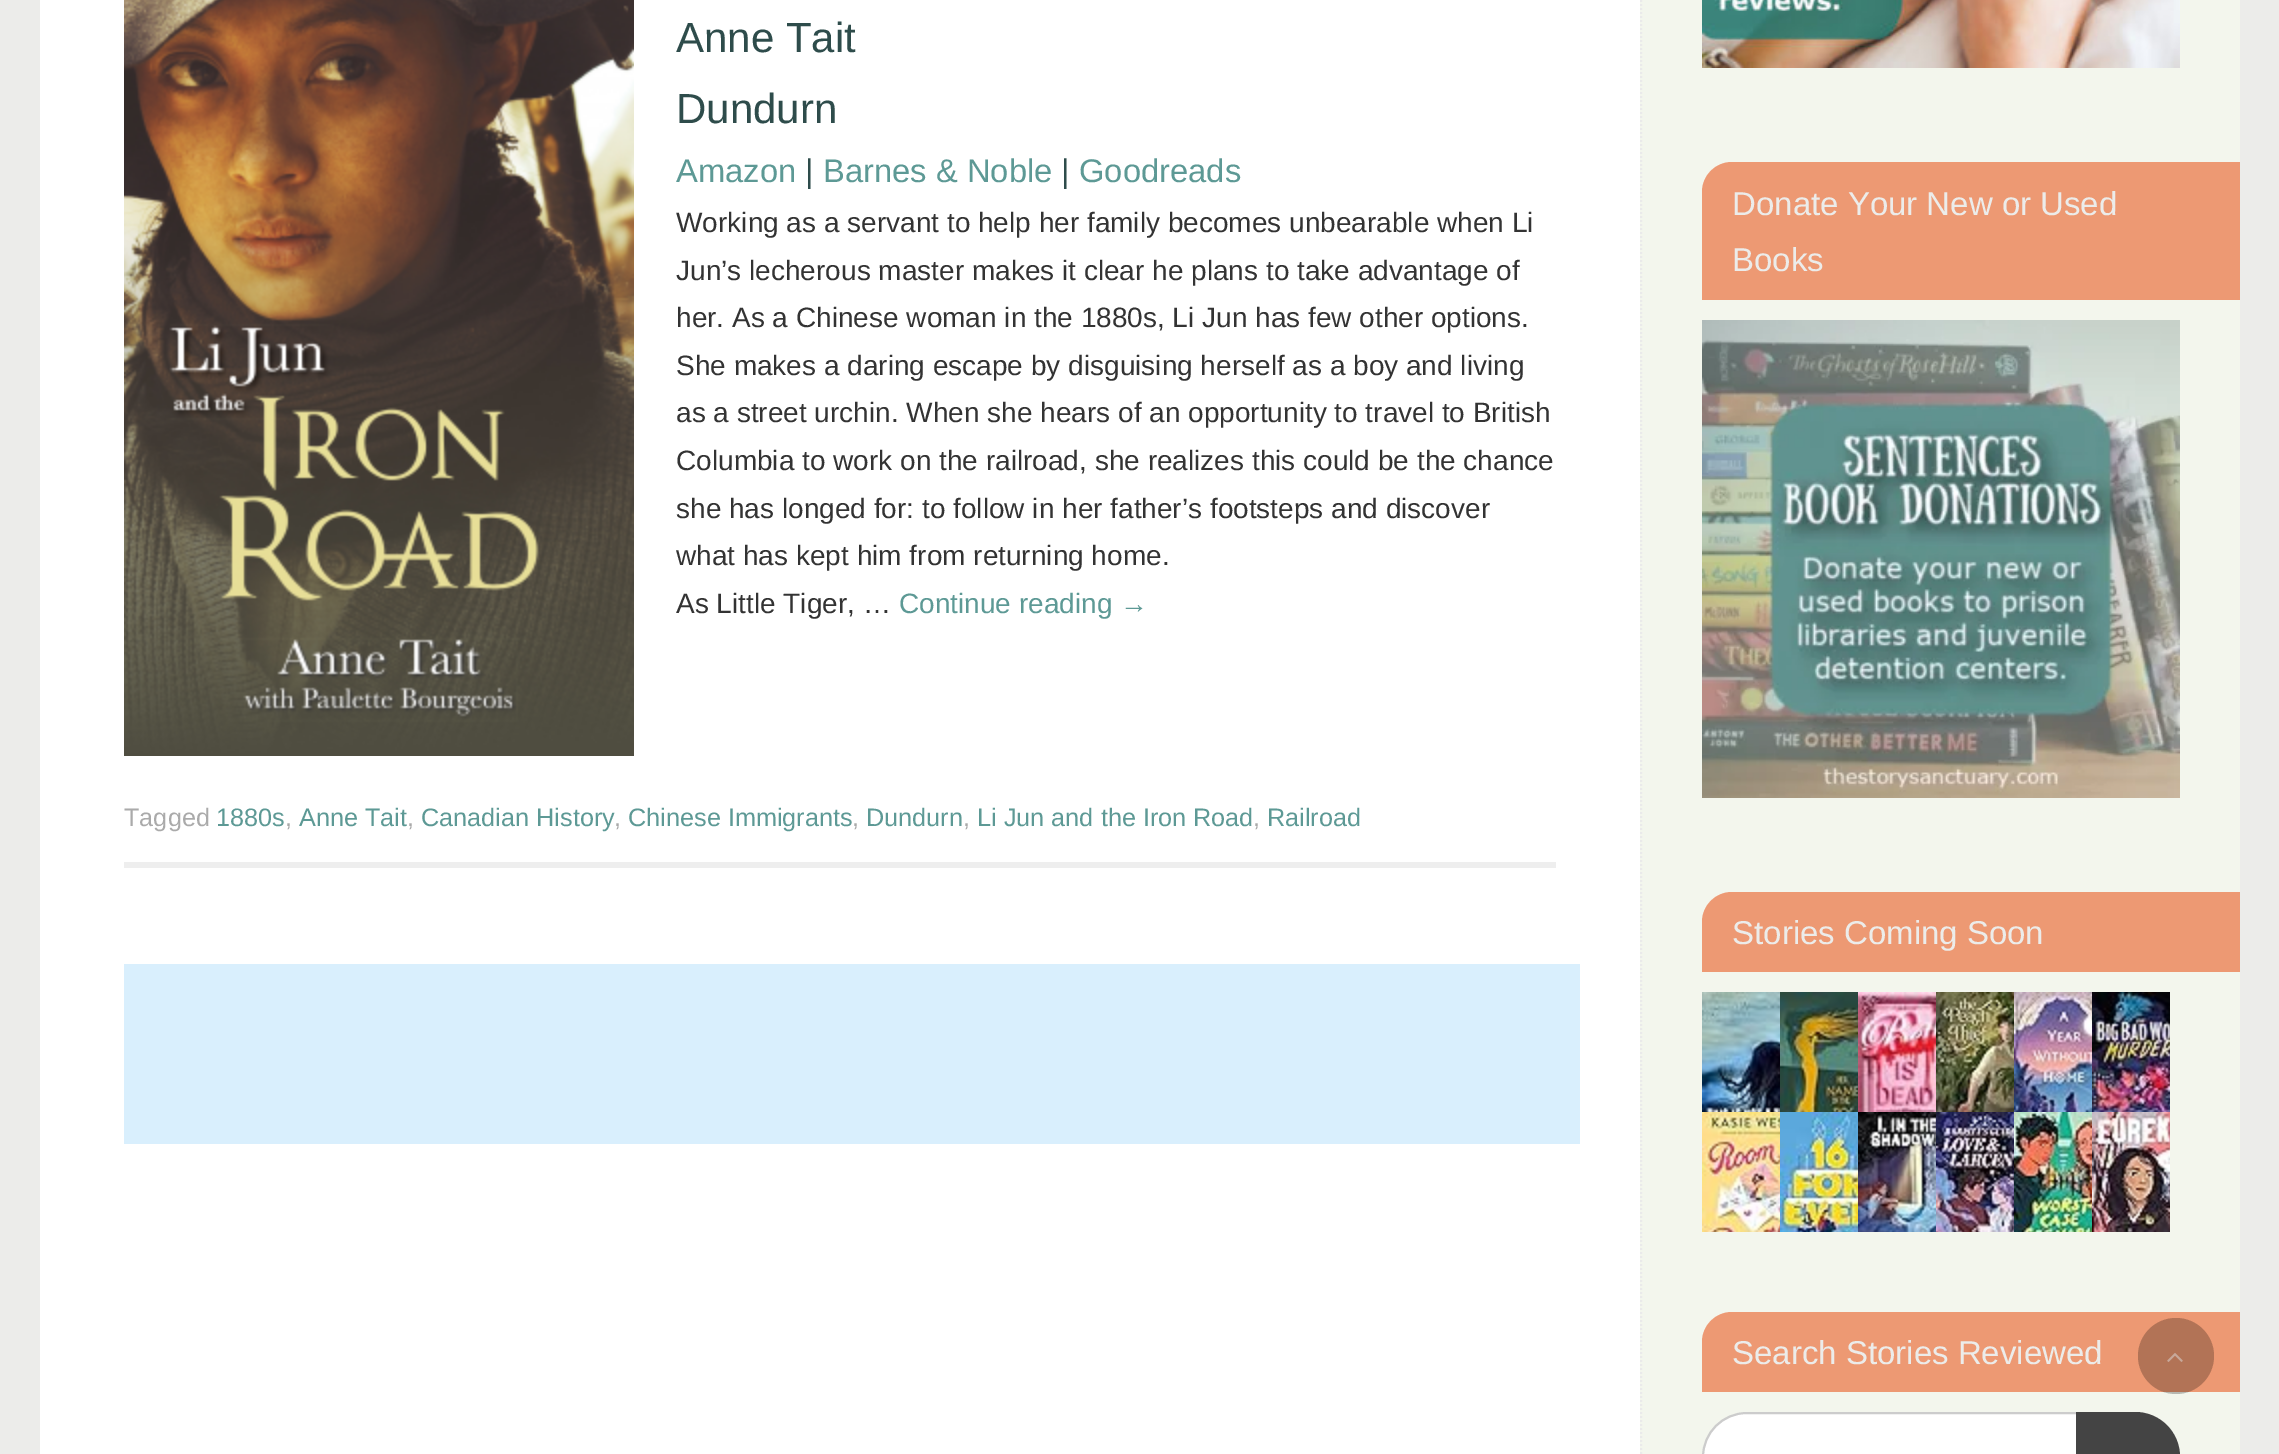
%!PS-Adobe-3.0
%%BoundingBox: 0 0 2279 1454
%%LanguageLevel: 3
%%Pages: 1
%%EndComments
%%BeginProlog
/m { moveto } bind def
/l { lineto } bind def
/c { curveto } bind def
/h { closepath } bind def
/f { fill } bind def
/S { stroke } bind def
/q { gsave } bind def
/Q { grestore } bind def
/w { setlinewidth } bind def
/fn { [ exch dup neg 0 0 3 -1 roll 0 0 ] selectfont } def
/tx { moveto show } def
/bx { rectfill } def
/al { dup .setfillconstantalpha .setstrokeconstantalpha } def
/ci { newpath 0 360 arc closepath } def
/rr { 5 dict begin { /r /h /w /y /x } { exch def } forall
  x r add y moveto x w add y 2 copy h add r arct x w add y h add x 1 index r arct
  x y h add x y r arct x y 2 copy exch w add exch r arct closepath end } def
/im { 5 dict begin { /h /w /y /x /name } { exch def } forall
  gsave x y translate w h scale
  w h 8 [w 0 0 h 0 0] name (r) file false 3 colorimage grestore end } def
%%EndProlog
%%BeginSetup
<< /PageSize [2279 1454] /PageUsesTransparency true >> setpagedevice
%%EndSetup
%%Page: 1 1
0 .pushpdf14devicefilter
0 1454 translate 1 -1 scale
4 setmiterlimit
0.925 0.925 0.918 setrgbcolor
0 0 2279 1454 bx
1 setgray
40 0 1600 1454 bx
0.933 setgray
124 862 1432 6 bx
(image0.raw) 124 0 510 756 im
/LiberationSans-Regular 42 fn
0.18 0.298 0.294 setrgbcolor
(Anne Tait) 676 52 tx
(Dundurn) 676 123 tx
/LiberationSans-Regular 32.75 fn
0.365 0.6 0.584 setrgbcolor
(Amazon) 676 182 tx
0.18 0.298 0.294 setrgbcolor
(|) 805 182 tx
0.365 0.6 0.584 setrgbcolor
(Barnes & Noble) 823 182 tx
0.18 0.298 0.294 setrgbcolor
(|) 1061 182 tx
0.365 0.6 0.584 setrgbcolor
(Goodreads) 1079 182 tx
/LiberationSans-Regular 28 fn
0.2 setgray
(Working as a servant to help her family becomes unbearable when Li) 676 232 tx
(Jun’s lecherous master makes it clear he plans to take advantage of) 676 280 tx
(her. As a Chinese woman in the 1880s, Li Jun has few other options.) 676 327 tx
(She makes a daring escape by disguising herself as a boy and living) 676 375 tx
(as a street urchin. When she hears of an opportunity to travel to British) 676 422 tx
(Columbia to work on the railroad, she realizes this could be the chance) 676 470 tx
(she has longed for: to follow in her father’s footsteps and discover) 676 518 tx
(what has kept him from returning home.) 676 565 tx
(As Little Tiger, …) 676 613 tx
0.365 0.6 0.584 setrgbcolor
(Continue reading →) 899 613 tx
/LiberationSans-Regular 25.25 fn
0.667 setgray
(Tagged) 124 826 tx
0.365 0.6 0.584 setrgbcolor
(1880s) 216 826 tx
0.667 setgray
(,) 285 826 tx
0.365 0.6 0.584 setrgbcolor
(Anne Tait) 299 826 tx
0.667 setgray
(,) 407 826 tx
0.365 0.6 0.584 setrgbcolor
(Canadian History) 421 826 tx
0.667 setgray
(,) 614 826 tx
0.365 0.6 0.584 setrgbcolor
(Chinese Immigrants) 628 826 tx
0.667 setgray
(,) 852 826 tx
0.365 0.6 0.584 setrgbcolor
(Dundurn) 866 826 tx
0.667 setgray
(,) 963 826 tx
0.365 0.6 0.584 setrgbcolor
(Li Jun and the Iron Road) 977 826 tx
0.667 setgray
(,) 1253 826 tx
0.365 0.6 0.584 setrgbcolor
(Railroad) 1267 826 tx
0.851 0.937 0.992 setrgbcolor
124 964 1456 180 bx
0.953 0.965 0.929 setrgbcolor
1640 0 600 1454 bx
0.918 setgray
2 w
[2 2] 0 setdash
1641 -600 m 1641 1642 l S
(image1.raw) 1702 0 478 68 im
0.929 0.6 0.451 setrgbcolor
1732 162 m 2240 162 l 2240 300 l 1702 300 l 1702 192 l 1702 175.5 1715.5 162 1732 162 c h f
/LiberationSans-Regular 33 fn
0.925 0.925 0.918 setrgbcolor
(Donate Your New or Used) 1732 215 tx
(Books) 1732 271 tx
(image2.raw) 1702 320 478 478 im
0.929 0.6 0.451 setrgbcolor
1732 892 m 2240 892 l 2240 972 l 1702 972 l 1702 922 l 1702 905.5 1715.5 892 1732 892 c h f
0.925 0.925 0.918 setrgbcolor
(Stories Coming Soon) 1732 944 tx
(image3.raw) 1702 992 78 120 im
(image4.raw) 1780 992 78 120 im
(image5.raw) 1858 992 78 120 im
(image6.raw) 1936 992 78 120 im
(image7.raw) 2014 992 78 120 im
(image8.raw) 2092 992 78 120 im
(image9.raw) 1702 1112 78 120 im
(image10.raw) 1780 1112 78 120 im
(image11.raw) 1858 1112 78 120 im
(image12.raw) 1936 1112 78 120 im
(image13.raw) 2014 1112 78 120 im
(image14.raw) 2092 1112 78 120 im
0.929 0.6 0.451 setrgbcolor
1732 1312 m 2240 1312 l 2240 1392 l 1702 1392 l 1702 1342 l 1702 1325.5 1715.5 1312 1732 1312 c h f
0.925 0.925 0.918 setrgbcolor
(Search Stories Reviewed) 1732 1364 tx
1 setgray
1703 1413 476 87 44 rr q f Q
0.8 setgray
[] 0 setdash
S
0.267 setgray
2076 1412 m 2135 1412 l 2160 1412 2180 1432 2180 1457 c 2180 1454 l 2180 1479 2160 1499 2135 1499 c 2076 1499 l h f
0.25 al
0 setgray
2176 1356 38 ci f
1 al
(image15.raw) 2167 1353 16 9 im
.poppdf14devicefilter showpage
%%EOF
